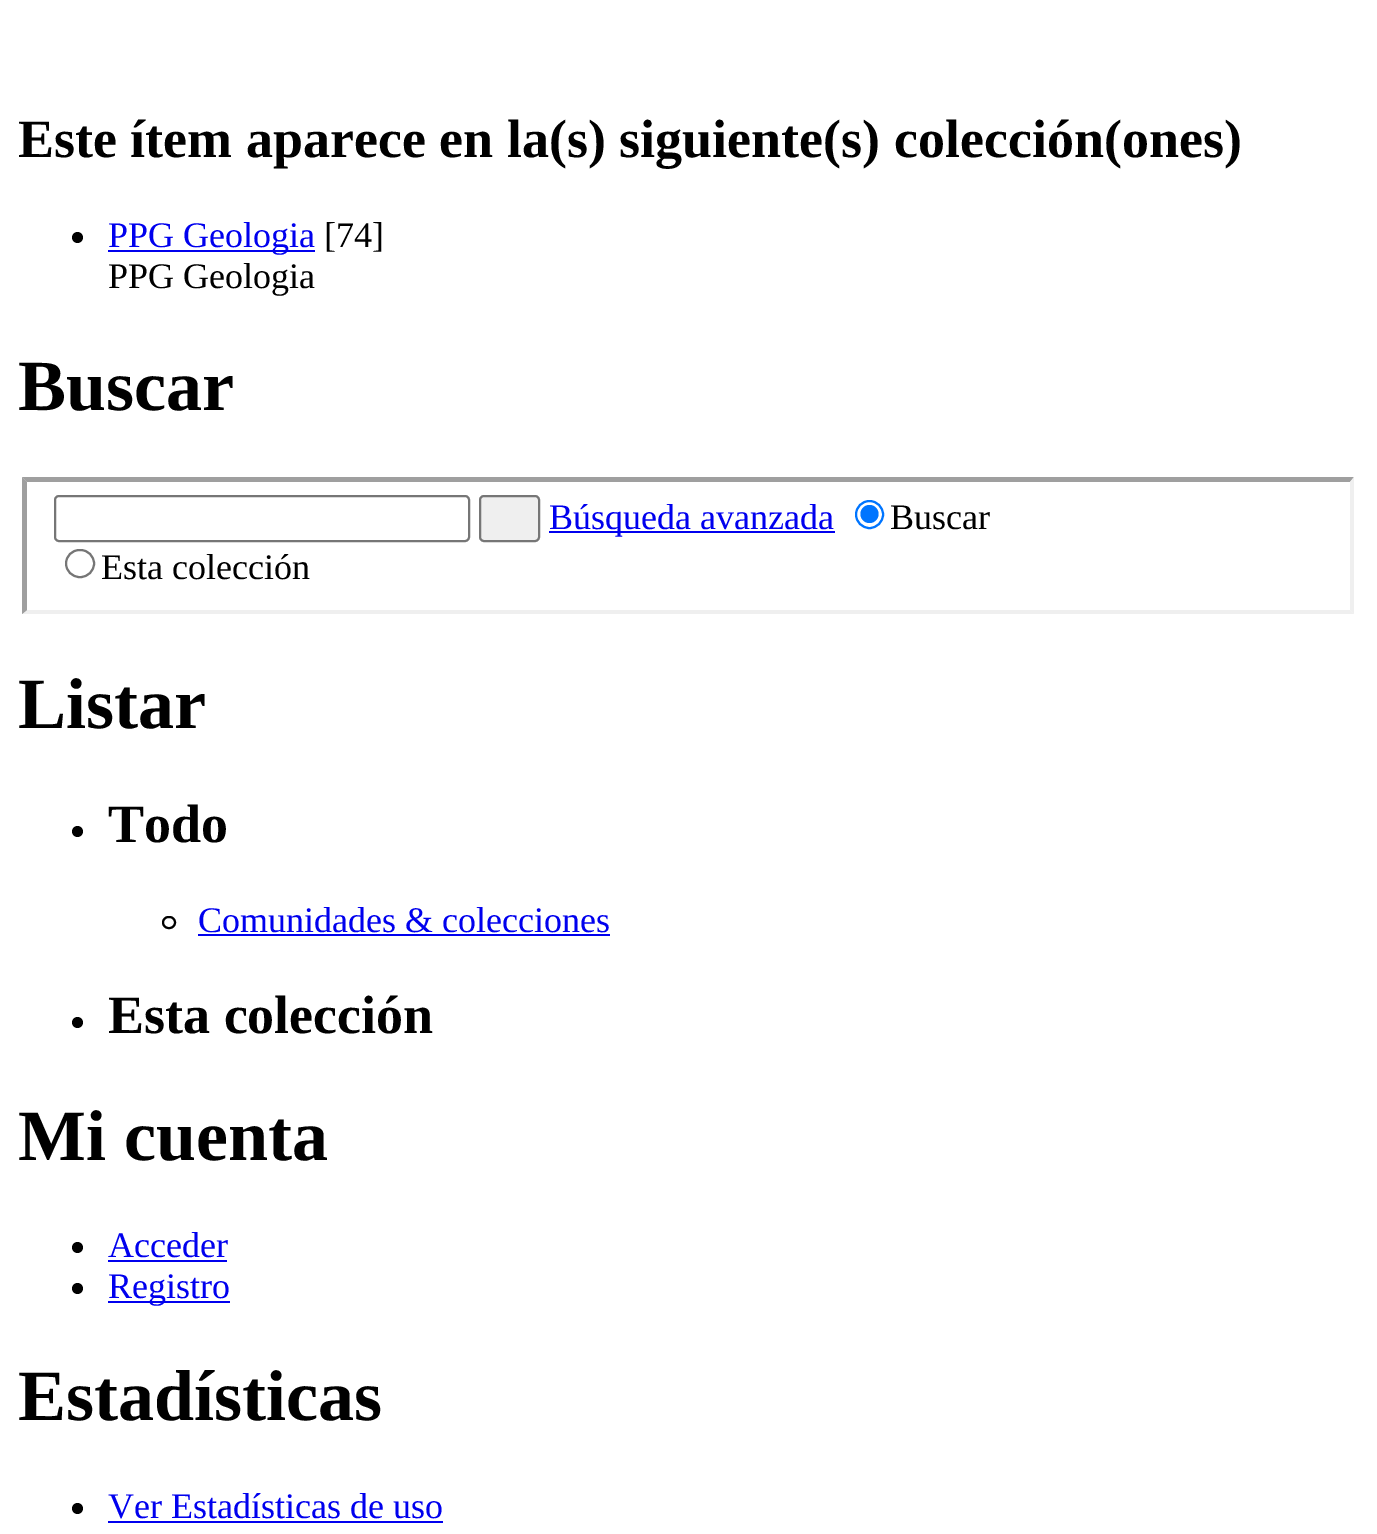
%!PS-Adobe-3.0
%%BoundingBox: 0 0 1377 1534
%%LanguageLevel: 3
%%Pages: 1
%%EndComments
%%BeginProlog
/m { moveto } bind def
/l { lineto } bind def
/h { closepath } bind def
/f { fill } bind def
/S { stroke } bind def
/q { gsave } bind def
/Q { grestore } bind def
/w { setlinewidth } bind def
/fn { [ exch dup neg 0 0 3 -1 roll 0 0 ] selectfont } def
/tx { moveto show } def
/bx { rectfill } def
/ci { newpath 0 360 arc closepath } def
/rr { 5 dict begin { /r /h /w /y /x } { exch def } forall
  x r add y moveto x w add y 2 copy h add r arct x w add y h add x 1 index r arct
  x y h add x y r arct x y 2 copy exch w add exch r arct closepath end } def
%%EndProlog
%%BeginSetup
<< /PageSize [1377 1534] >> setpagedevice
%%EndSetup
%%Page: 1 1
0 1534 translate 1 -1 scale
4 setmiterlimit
1 setgray
0 0 1377 1534 bx
/LiberationSerif-Bold 54 fn
0 setgray
(Este ítem aparece en la\(s\) siguiente\(s\) colección\(ones\)) 18 157 tx
77.5 237.5 5.5 ci f
0 0 0.933 setrgbcolor
108 250 207 2 bx
/LiberationSerif-Regular 36 fn
(PPG Geologia) 108 247 tx
0 setgray
([74]) 324 247 tx
(PPG Geologia) 108 288 tx
/LiberationSerif-Bold 72 fn
(Buscar) 18 410 tx
0.624 setgray
22 477 m 1354 477 l 1350 482 l 27 482 l h f
0.937 setgray
1354 477 m 1354 614 l 1350 610 l 1350 482 l h f
1354 614 m 22 614 l 27 610 l 1350 610 l h f
0.624 setgray
22 614 m 22 477 l 27 482 l 27 610 l h f
0.463 setgray
2 w
55 496 414 45 4 rr S
0.937 setgray
480 496 59 45 4 rr q f Q
0.463 setgray
S
0 0 0.933 setrgbcolor
549 531 286 2 bx
/LiberationSerif-Regular 36 fn
(Búsqueda avanzada) 549 529 tx
0 0.459 1 setrgbcolor
869.5 514.5 13.5 ci S
869.5 514 9 ci f
0 setgray
(Buscar) 890 529 tx
0.463 setgray
66 550 28 27 13.5 rr S
0 setgray
(Esta colección) 101 579 tx
/LiberationSerif-Bold 72 fn
(Listar) 18 728 tx
77.5 831.5 5.5 ci f
/LiberationSerif-Bold 54 fn
(Todo) 108 842 tx
163 917 12 11 5.5 rr S
/LiberationSerif-Regular 36 fn
0 0 0.933 setrgbcolor
(Comunidades & colecciones) 198 932 tx
198 934 412 2 bx
0 setgray
77.5 1022.5 5.5 ci f
/LiberationSerif-Bold 54 fn
(Esta colección) 108 1033 tx
/LiberationSerif-Bold 72 fn
(Mi cuenta) 18 1160 tx
77.5 1247.5 5.5 ci f
/LiberationSerif-Regular 36 fn
0 0 0.933 setrgbcolor
(Acceder) 108 1257 tx
108 1260 119 2 bx
0 setgray
77.5 1288.5 5.5 ci f
0 0 0.933 setrgbcolor
108 1301 122 2 bx
(Registro) 108 1298 tx
/LiberationSerif-Bold 72 fn
0 setgray
(Estadísticas) 18 1420 tx
77.5 1508.5 5.5 ci f
/LiberationSerif-Regular 36 fn
0 0 0.933 setrgbcolor
(Ver Estadísticas de uso) 108 1518 tx
108 1521 335 2 bx
showpage
%%EOF
